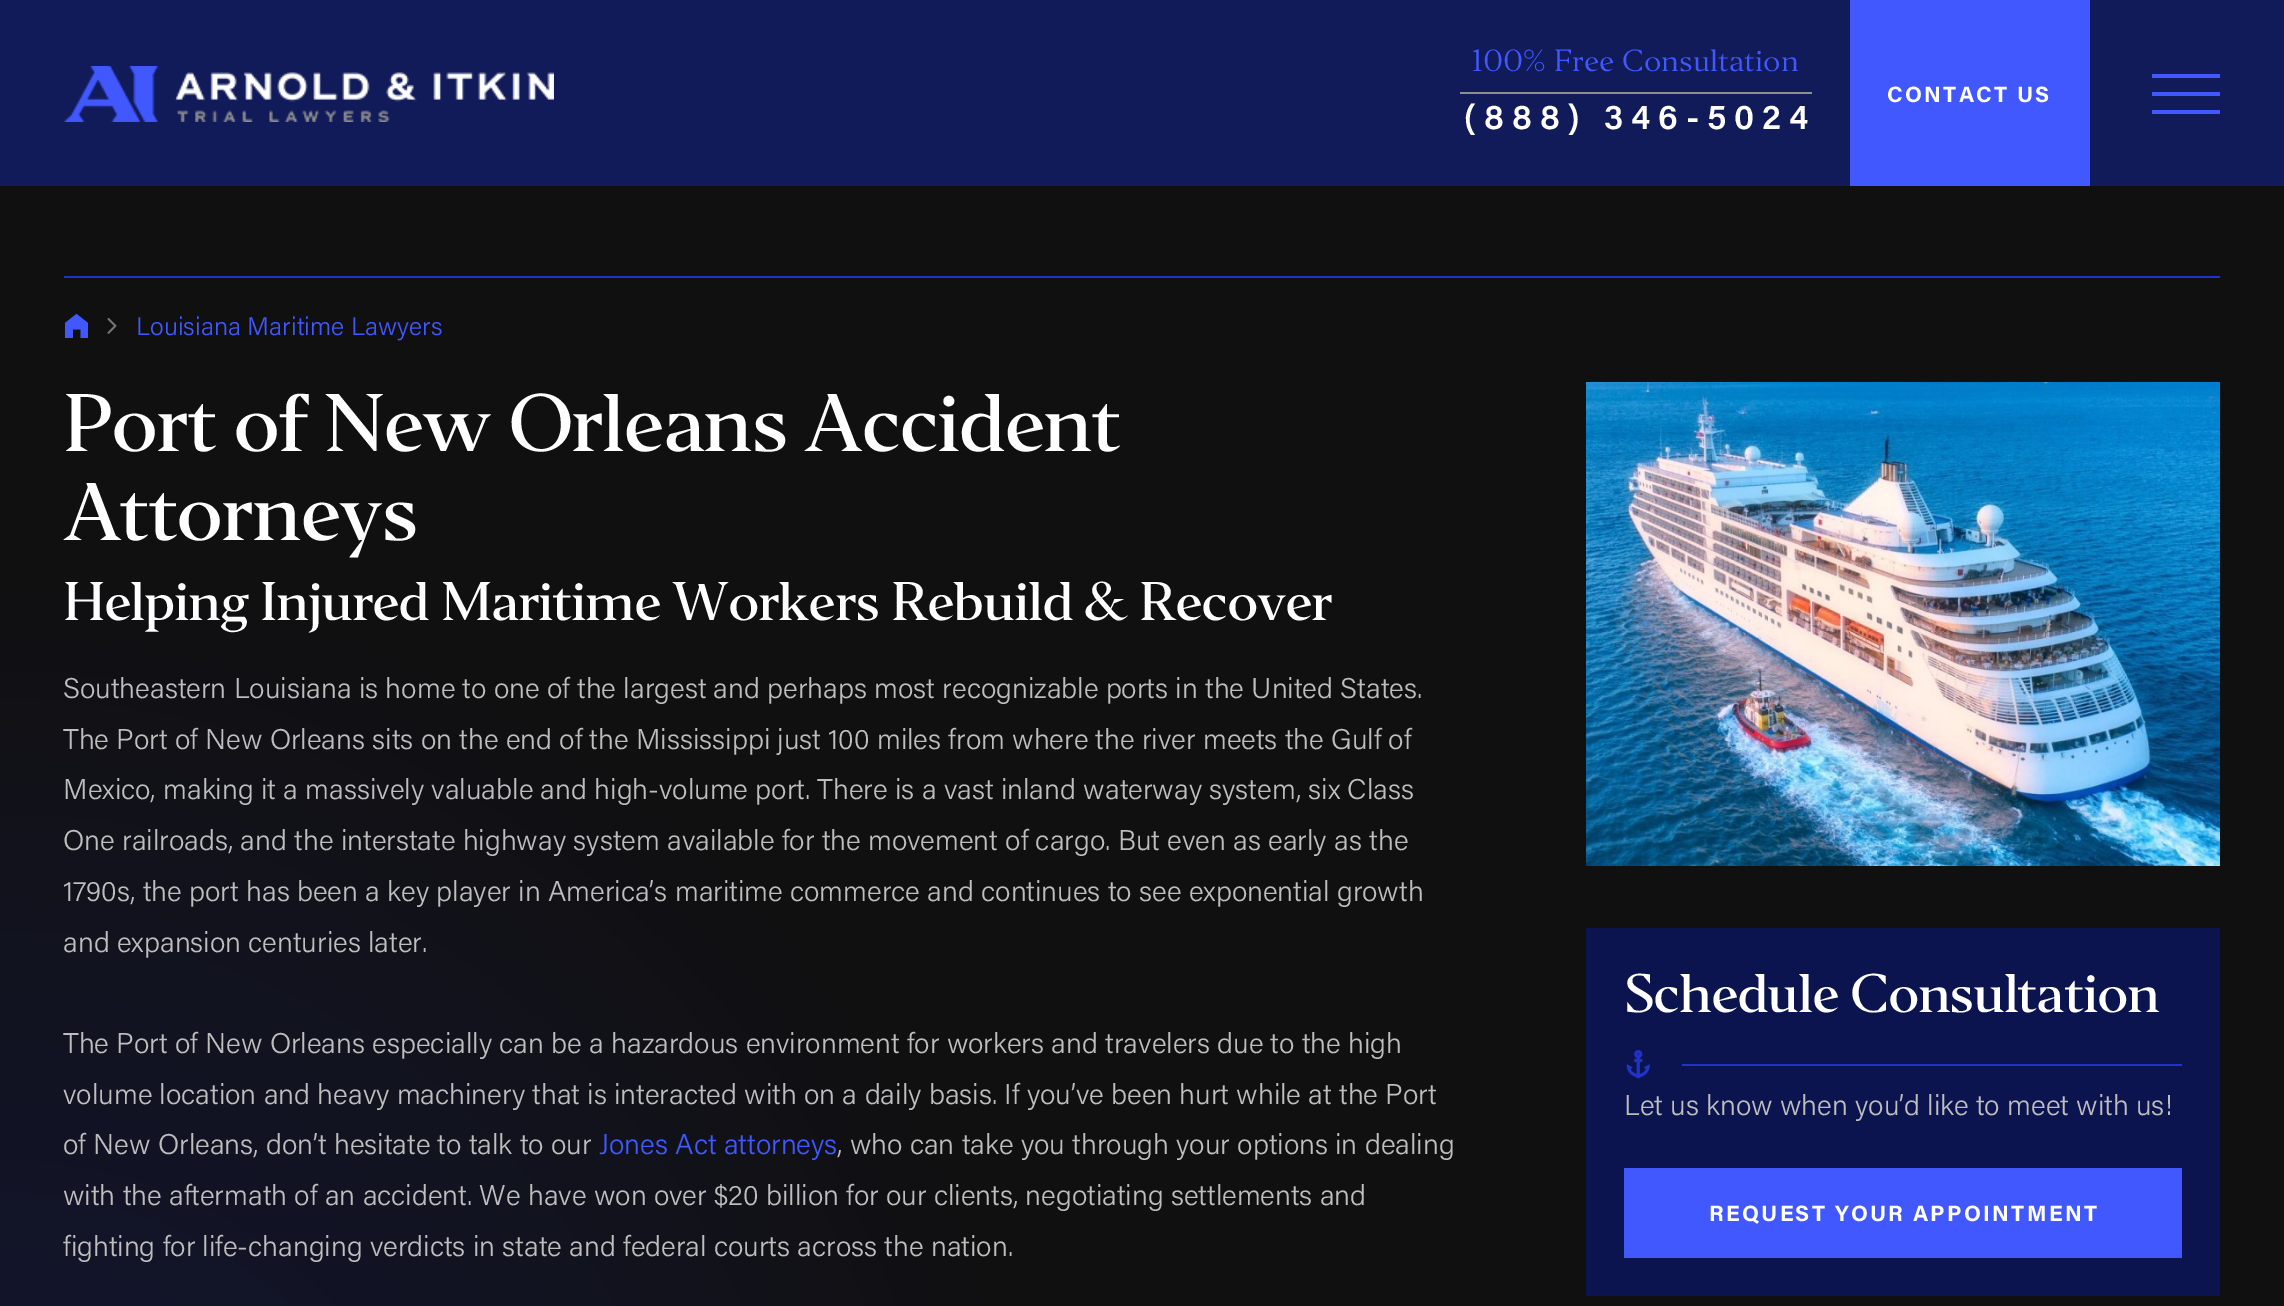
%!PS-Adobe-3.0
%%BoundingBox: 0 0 2284 1306
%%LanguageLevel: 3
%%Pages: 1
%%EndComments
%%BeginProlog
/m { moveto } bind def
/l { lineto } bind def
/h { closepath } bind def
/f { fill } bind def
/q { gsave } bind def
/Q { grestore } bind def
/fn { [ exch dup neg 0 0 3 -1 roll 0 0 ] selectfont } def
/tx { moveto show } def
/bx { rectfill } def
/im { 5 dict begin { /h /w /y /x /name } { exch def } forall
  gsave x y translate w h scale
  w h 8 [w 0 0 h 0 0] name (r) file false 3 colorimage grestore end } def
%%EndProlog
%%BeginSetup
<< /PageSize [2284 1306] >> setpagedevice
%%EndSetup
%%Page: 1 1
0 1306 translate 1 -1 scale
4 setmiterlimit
0.063 setgray
0 0 2284 1306 bx
0.067 0.106 0.353 setrgbcolor
0 0 2284 186 bx
(image0.raw) 64 66 490 56 im
0.557 setgray
1460 92 352 2 bx
/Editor-Regular 28.5 fn
0.259 0.345 1 setrgbcolor
(100% Free Consultation) 1472 71 tx
/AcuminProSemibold-SemiBold 34.8 fn
1 setgray
1464 129 m 7.75 0 (\(888\) 346-5024) ashow
0.259 0.345 1 setrgbcolor
1850 0 240 186 bx
/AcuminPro-Bold 22.2 fn
1 setgray
1887 102 m 2.25 0 (CONTACT US) ashow
0.259 0.345 1 setrgbcolor
2152 74 68 4 bx
2152 92 68 4 bx
2152 110 68 4 bx
0.122 0.2 0.784 setrgbcolor
64 276 2156 2 bx
q
64 314 24 24 rectclip
0.259 0.345 1 setrgbcolor
76.5 314 m 65 323 l 65 339.5 l 73 339.5 l 73 329.5 l 80.5 329.5 l 80.5 339.5 l 88 339.5 l 88 323 l h f
Q
(image1.raw) 107 318 10 16 im
/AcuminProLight-Light 25.4 fn
0.259 0.345 1 setrgbcolor
(Louisiana Maritime Lawyers) 136 335 tx
q 0 593 m 984 593 l 984 1306 l 0 1306 l h clip newpath 0 1620 translate 3682 3682 scale
<< /ShadingType 3 /ColorSpace /DeviceRGB /Coords [0 0 0 0 0 1] /Extend [true true] /Function << /FunctionType 3 /Domain [0 1] /Functions [<< /FunctionType 2 /Domain [0 1] /C0 [0.075 0.09 0.208] /C1 [0.063 0.063 0.063] /N 1 >> << /FunctionType 2 /Domain [0 1] /C0 [0.063 0.063 0.063] /C1 [0.063 0.063 0.063] /N 1 >>] /Bounds [0.3] /Encode [0 1 0 1] >> >> shfill Q
/Editor-Medium 76 fn
1 setgray
63 451 m -2.25 0 (Port of New Orleans Accident) ashow
63 540 m -2.25 0 (Attorneys) ashow
/Editor-Medium 50.7 fn
63 620 m -1.52 0 (Helping Injured Maritime Workers Rebuild & Recover) ashow
/AcuminProLight-Light 28.5 fn
0.745 setgray
(Southeastern Louisiana is home to one of the largest and perhaps most recognizable ports in the United States.) 63 698 tx
(The Port of New Orleans sits on the end of the Mississippi just 100 miles from where the river meets the Gulf of) 63 749 tx
(Mexico, making it a massively valuable and high-volume port. There is a vast inland waterway system, six Class) 63 799 tx
(One railroads, and the interstate highway system available for the movement of cargo. But even as early as the) 63 850 tx
(1790s, the port has been a key player in America’s maritime commerce and continues to see exponential growth) 63 901 tx
(and expansion centuries later.) 63 952 tx
(The Port of New Orleans especially can be a hazardous environment for workers and travelers due to the high) 63 1053 tx
(volume location and heavy machinery that is interacted with on a daily basis. If you’ve been hurt while at the Port) 63 1104 tx
(of New Orleans, don’t hesitate to talk to our) 63 1154 tx
0.259 0.345 1 setrgbcolor
(Jones Act attorneys) 599 1154 tx
0.745 setgray
(, who can take you through your options in dealing) 837 1154 tx
(with the aftermath of an accident. We have won over $20 billion for our clients, negotiating settlements and) 63 1205 tx
(fighting for life-changing verdicts in state and federal courts across the nation.) 63 1256 tx
(image2.raw) 1586 382 634 484 im
0.047 0.078 0.314 setrgbcolor
1586 928 634 368 bx
/Editor-Medium 50.7 fn
1 setgray
1624 1012 m -1.52 0 (Schedule Consultation) ashow
(image3.raw) 1626 1050 24 29 im
0.122 0.2 0.784 setrgbcolor
1682 1064 500 2 bx
/AcuminProLight-Light 28.5 fn
0.745 setgray
(Let us know when you’d like to meet with us!) 1624 1115 tx
0.259 0.345 1 setrgbcolor
1624 1168 558 90 bx
/AcuminPro-Bold 22.2 fn
1 setgray
1709 1221 m 2.25 0 (REQUEST YOUR APPOINTMENT) ashow
showpage
%%EOF
